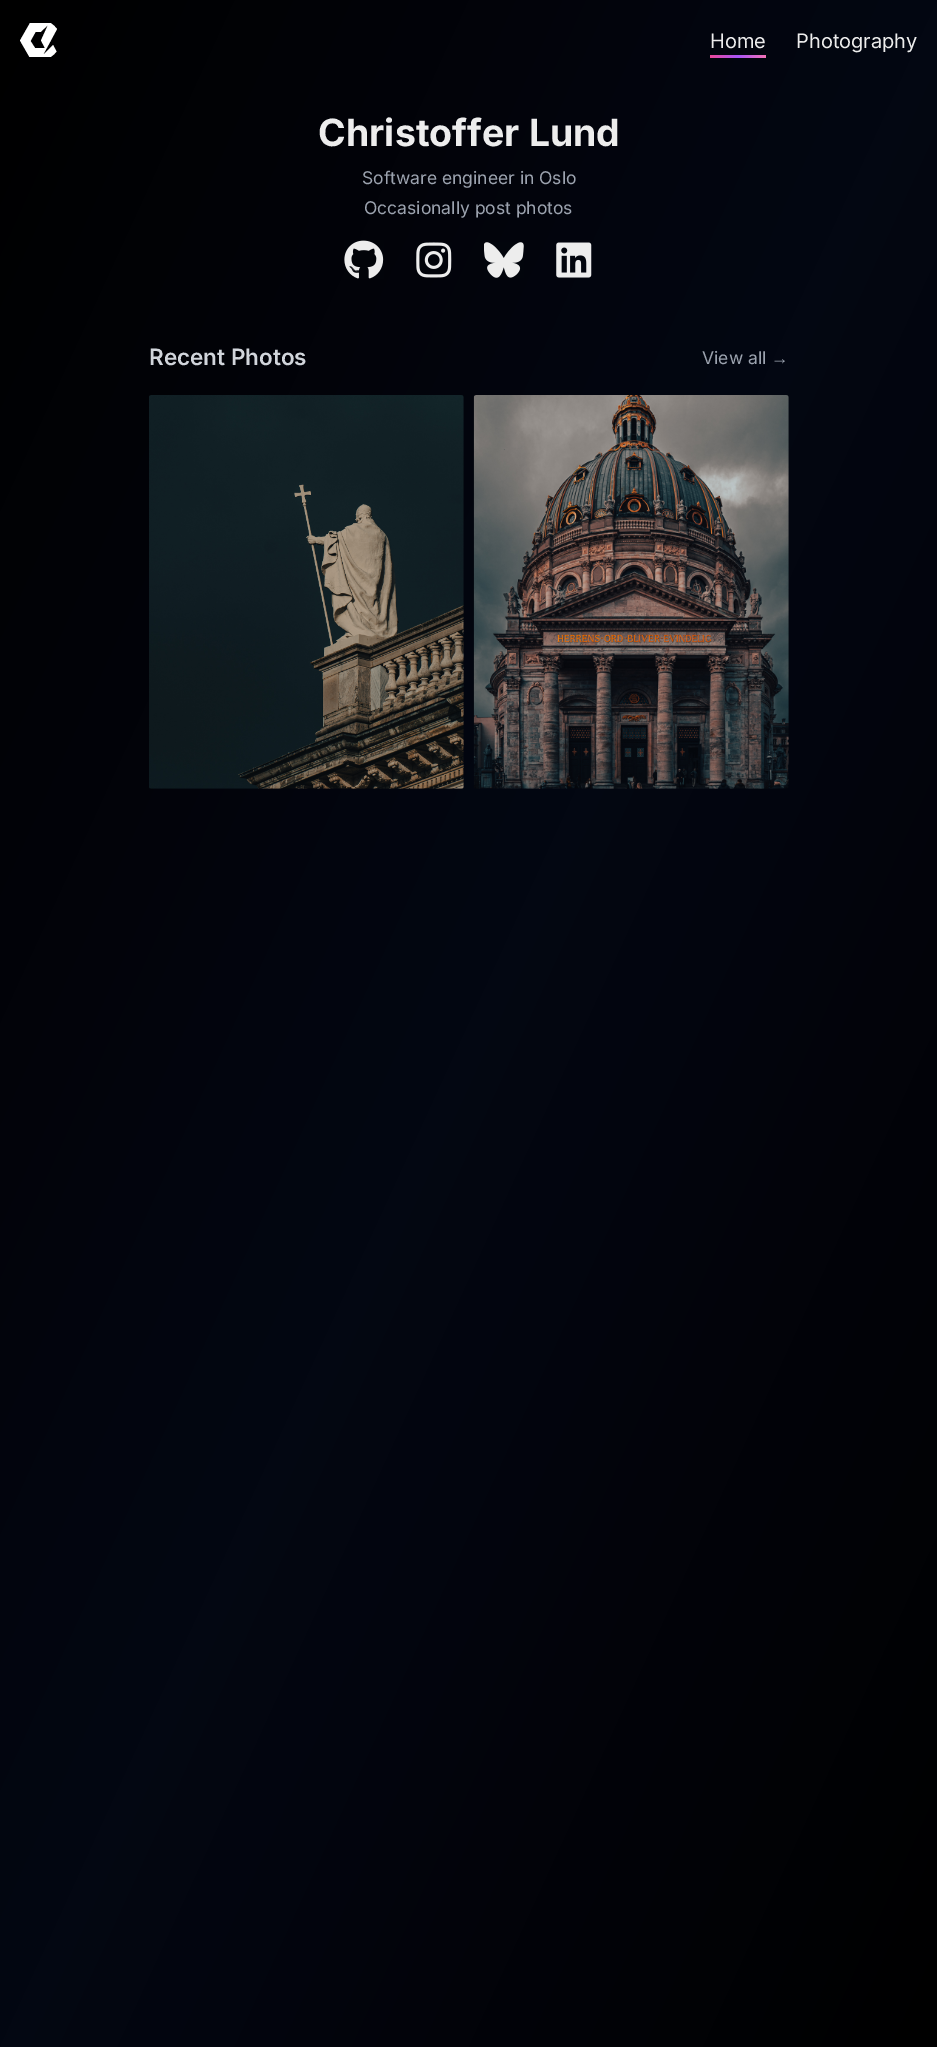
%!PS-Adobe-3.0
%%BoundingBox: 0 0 937 2047
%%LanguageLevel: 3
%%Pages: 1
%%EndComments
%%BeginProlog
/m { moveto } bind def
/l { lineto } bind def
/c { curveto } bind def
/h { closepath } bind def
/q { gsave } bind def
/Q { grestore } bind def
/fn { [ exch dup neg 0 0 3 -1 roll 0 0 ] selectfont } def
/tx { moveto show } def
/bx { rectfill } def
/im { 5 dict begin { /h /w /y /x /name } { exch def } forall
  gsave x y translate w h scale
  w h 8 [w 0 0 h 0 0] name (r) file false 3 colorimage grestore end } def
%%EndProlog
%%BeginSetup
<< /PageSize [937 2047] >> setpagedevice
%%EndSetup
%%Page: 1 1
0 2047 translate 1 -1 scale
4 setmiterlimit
1 setgray
0 0 937 2047 bx
q 0 0 m 937 0 l 937 2047 l 0 2047 l h clip newpath
<< /ShadingType 2 /ColorSpace /DeviceRGB /Coords [-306 669 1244 1379] /Extend [true true] /Function << /FunctionType 3 /Domain [0 1] /Functions [<< /FunctionType 2 /Domain [0 1] /C0 [0 0 0] /C1 [0.012 0.027 0.071] /N 1 >> << /FunctionType 2 /Domain [0 1] /C0 [0.012 0.027 0.071] /C1 [0 0 0] /N 1 >>] /Bounds [0.5] /Encode [0 1 0 1] >> >> shfill Q
30 23 m 50.5 23 l 53 24.5 55 26.5 57 29 c 43 55 l 53 45 l 56.5 51.5 l 55 53.5 53 55.5 50.5 57 c 29.5 57 l 20 40.5 l h 48 25 m 40.5 32 l 35.5 32 l 30.5 41 l 35 48 l 45 48 l 41 40.5 l h eofill
/Inter-Regular 20 fn
0.929 setgray
(Home) 710 48 tx
q 710 55 m 766 55 l 766 58 l 710 58 l h clip newpath
<< /ShadingType 2 /ColorSpace /DeviceRGB /Coords [710 56 766 56] /Extend [true true] /Function << /FunctionType 3 /Domain [0 1] /Functions [<< /FunctionType 2 /Domain [0 1] /C0 [0.925 0.282 0.6] /C1 [0.659 0.333 0.969] /N 1 >> << /FunctionType 2 /Domain [0 1] /C0 [0.659 0.333 0.969] /C1 [0.957 0.447 0.714] /N 1 >>] /Bounds [0.5] /Encode [0 1 0 1] >> >> shfill Q
(Photography) 796 48 tx
/Inter-Bold 37.5 fn
(Christoffer Lund) 318 146 tx
/Inter-Regular 17.5 fn
0.612 0.639 0.686 setrgbcolor
(Software engineer in Oslo) 362 184 tx
(Occasionally post photos) 364 214 tx
(image0.raw) 344 240 40 39 im
(image1.raw) 416 242 36 36 im
(image2.raw) 484 242 40 36 im
(image3.raw) 556 242 36 36 im
/Inter-SemiBold 22.5 fn
0.82 0.835 0.859 setrgbcolor
(Recent Photos) 149 365 tx
/Inter-Regular 17.5 fn
0.612 0.639 0.686 setrgbcolor
(View all) 702 364 tx
/LiberationSerif-Regular 17.5 fn
(→) 771 364 tx
(image4.raw) 149 395 315 394 im
(image5.raw) 473 395 316 394 im
showpage
%%EOF
